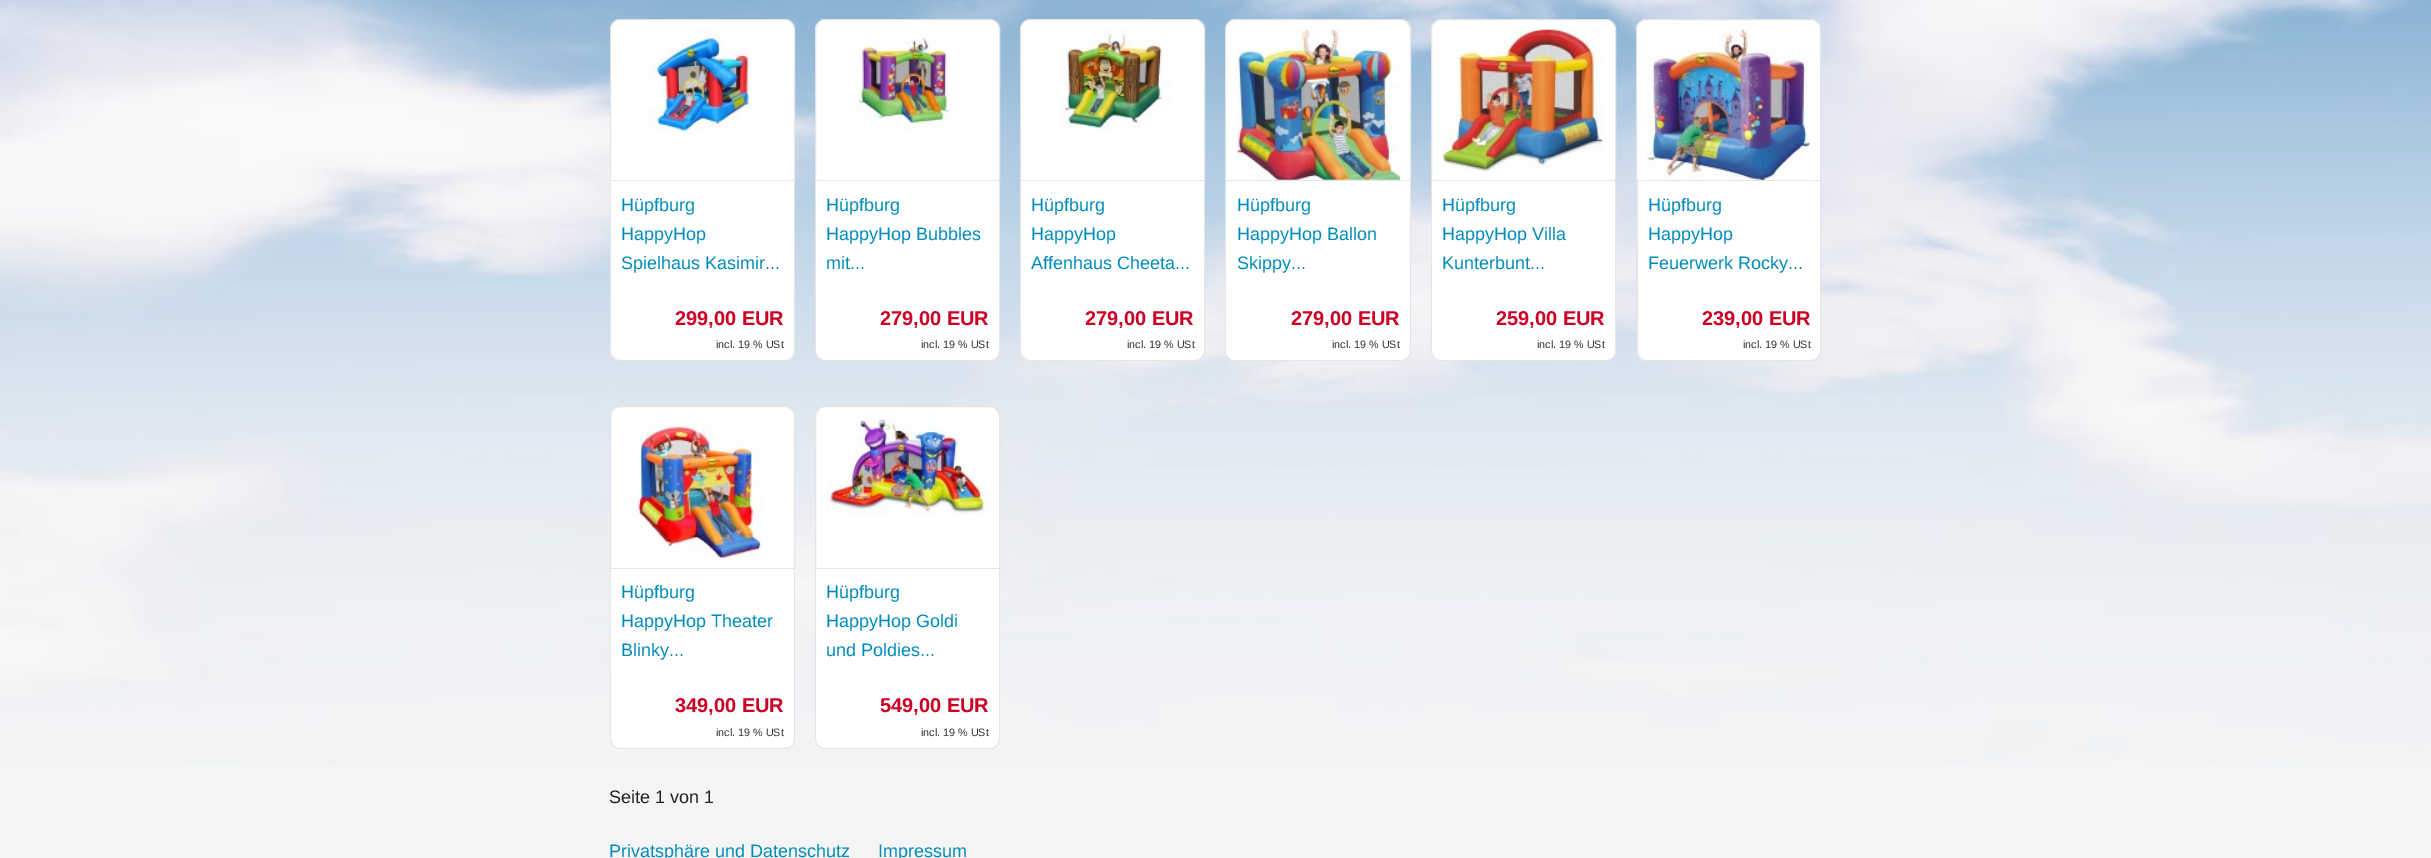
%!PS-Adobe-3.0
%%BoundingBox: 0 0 2431 858
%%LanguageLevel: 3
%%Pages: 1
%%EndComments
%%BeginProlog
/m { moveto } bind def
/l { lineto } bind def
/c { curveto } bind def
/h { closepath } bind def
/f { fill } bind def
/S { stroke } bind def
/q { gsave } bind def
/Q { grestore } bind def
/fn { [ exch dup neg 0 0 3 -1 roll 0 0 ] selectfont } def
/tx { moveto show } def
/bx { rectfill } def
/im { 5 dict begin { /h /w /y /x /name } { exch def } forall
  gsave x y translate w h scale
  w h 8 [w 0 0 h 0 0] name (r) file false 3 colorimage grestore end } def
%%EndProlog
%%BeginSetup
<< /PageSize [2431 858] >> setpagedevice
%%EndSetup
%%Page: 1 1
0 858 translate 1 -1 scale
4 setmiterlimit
0.961 setgray
0 0 2431 858 bx
(image0.raw) 0 0 2431 766 im
1 setgray
620 19.5 m 785 19.5 l 790 19.5 794.5 24 794.5 29 c 794.5 180.5 l 610.5 180.5 l 610.5 29 l 610.5 24 615 19.5 620 19.5 c h q f Q
0.898 setgray
S
(image1.raw) 641 30 120 105 im
1 setgray
610 181 m 795 181 l 795 351 l 795 356.5 790.5 361 785 361 c 620 361 l 614.5 361 610 356.5 610 351 c h f
0.898 setgray
610 181 m 795 181 l 795 351 l 795 357 791 361 785 361 c 620 361 l 614 361 610 357 610 351 c h 611 181 m 794 181 l 794 351 l 794 356 790 360 785 360 c 620 360 l 615 360 611 356 611 351 c h eofill
/LiberationSans-Regular 18 fn
0 0.549 0.729 setrgbcolor
(Hüpfburg) 621 211 tx
(HappyHop) 621 240 tx
(Spielhaus Kasimir...) 621 269 tx
/LiberationSans-Bold 20 fn
0.8 0 0.141 setrgbcolor
(299,00 EUR) 675 325 tx
/LiberationSans-Regular 10.75 fn
0.2 setgray
(incl. 19 % USt) 716 348 tx
1 setgray
825 19.5 m 990 19.5 l 995 19.5 999.5 24 999.5 29 c 999.5 180.5 l 815.5 180.5 l 815.5 29 l 815.5 24 820 19.5 825 19.5 c h q f Q
0.898 setgray
S
(image2.raw) 846 30 104 100 im
1 setgray
815 181 m 1000 181 l 1000 351 l 1000 356.5 995.5 361 990 361 c 825 361 l 819.5 361 815 356.5 815 351 c h f
0.898 setgray
815 181 m 1000 181 l 1000 351 l 1000 357 996 361 990 361 c 825 361 l 819 361 815 357 815 351 c h 816 181 m 999 181 l 999 351 l 999 356 995 360 990 360 c 825 360 l 820 360 816 356 816 351 c h eofill
/LiberationSans-Regular 18 fn
0 0.549 0.729 setrgbcolor
(Hüpfburg) 826 211 tx
(HappyHop Bubbles) 826 240 tx
(mit...) 826 269 tx
/LiberationSans-Bold 20 fn
0.8 0 0.141 setrgbcolor
(279,00 EUR) 880 325 tx
/LiberationSans-Regular 10.75 fn
0.2 setgray
(incl. 19 % USt) 921 348 tx
1 setgray
1030 19.5 m 1195 19.5 l 1200 19.5 1204.5 24 1204.5 29 c 1204.5 180.5 l 1020.5 180.5 l 1020.5 29 l 1020.5 24 1025 19.5 1030 19.5 c h q f Q
0.898 setgray
S
(image3.raw) 1059 30 113 100 im
1 setgray
1020 181 m 1205 181 l 1205 351 l 1205 356.5 1200.5 361 1195 361 c 1030 361 l 1024.5 361 1020 356.5 1020 351 c h f
0.898 setgray
1020 181 m 1205 181 l 1205 351 l 1205 357 1201 361 1195 361 c 1030 361 l 1024 361 1020 357 1020 351 c h 1021 181 m 1204 181 l 1204 351 l 1204 356 1200 360 1195 360 c 1030 360 l 1025 360 1021 356 1021 351 c h eofill
/LiberationSans-Regular 18 fn
0 0.549 0.729 setrgbcolor
(Hüpfburg) 1031 211 tx
(HappyHop) 1031 240 tx
(Affenhaus Cheeta...) 1031 269 tx
/LiberationSans-Bold 20 fn
0.8 0 0.141 setrgbcolor
(279,00 EUR) 1085 325 tx
/LiberationSans-Regular 10.75 fn
0.2 setgray
(incl. 19 % USt) 1127 348 tx
1 setgray
1235 19.5 m 1401 19.5 l 1406 19.5 1410.5 24 1410.5 29 c 1410.5 180.5 l 1225.5 180.5 l 1225.5 29 l 1225.5 24 1230 19.5 1235 19.5 c h q f Q
0.898 setgray
S
(image4.raw) 1237 29 163 151 im
1 setgray
1225 181 m 1411 181 l 1411 351 l 1411 356.5 1406.5 361 1401 361 c 1235 361 l 1229.5 361 1225 356.5 1225 351 c h f
0.898 setgray
1225 181 m 1411 181 l 1411 351 l 1411 357 1407 361 1401 361 c 1235 361 l 1229 361 1225 357 1225 351 c h 1226 181 m 1410 181 l 1410 351 l 1410 356 1406 360 1401 360 c 1235 360 l 1230 360 1226 356 1226 351 c h eofill
/LiberationSans-Regular 18 fn
0 0.549 0.729 setrgbcolor
(Hüpfburg) 1237 211 tx
(HappyHop Ballon) 1237 240 tx
(Skippy...) 1237 269 tx
/LiberationSans-Bold 20 fn
0.8 0 0.141 setrgbcolor
(279,00 EUR) 1291 325 tx
/LiberationSans-Regular 10.75 fn
0.2 setgray
(incl. 19 % USt) 1332 348 tx
1 setgray
1441 19.5 m 1606 19.5 l 1611 19.5 1615.5 24 1615.5 29 c 1615.5 180.5 l 1431.5 180.5 l 1431.5 29 l 1431.5 24 1436 19.5 1441 19.5 c h q f Q
0.898 setgray
S
(image5.raw) 1442 29 162 143 im
1 setgray
1431 181 m 1616 181 l 1616 351 l 1616 356.5 1611.5 361 1606 361 c 1441 361 l 1435.5 361 1431 356.5 1431 351 c h f
0.898 setgray
1431 181 m 1616 181 l 1616 351 l 1616 357 1612 361 1606 361 c 1441 361 l 1436 361 1431 357 1431 351 c h 1432 181 m 1615 181 l 1615 351 l 1615 356 1611 360 1606 360 c 1441 360 l 1436 360 1432 356 1432 351 c h eofill
/LiberationSans-Regular 18 fn
0 0.549 0.729 setrgbcolor
(Hüpfburg) 1442 211 tx
(HappyHop Villa) 1442 240 tx
(Kunterbunt...) 1442 269 tx
/LiberationSans-Bold 20 fn
0.8 0 0.141 setrgbcolor
(259,00 EUR) 1496 325 tx
/LiberationSans-Regular 10.75 fn
0.2 setgray
(incl. 19 % USt) 1537 348 tx
1 setgray
1646 19.5 m 1811 19.5 l 1816 19.5 1820.5 24 1820.5 29 c 1820.5 180.5 l 1636.5 180.5 l 1636.5 29 l 1636.5 24 1641 19.5 1646 19.5 c h q f Q
0.898 setgray
S
(image6.raw) 1647 29 163 151 im
1 setgray
1636 181 m 1821 181 l 1821 351 l 1821 356.5 1816.5 361 1811 361 c 1646 361 l 1640.5 361 1636 356.5 1636 351 c h f
0.898 setgray
1636 181 m 1821 181 l 1821 351 l 1821 357 1817 361 1811 361 c 1646 361 l 1641 361 1636 357 1636 351 c h 1638 181 m 1820 181 l 1820 351 l 1820 356 1816 360 1811 360 c 1646 360 l 1641 360 1638 356 1638 351 c h eofill
/LiberationSans-Regular 18 fn
0 0.549 0.729 setrgbcolor
(Hüpfburg) 1648 211 tx
(HappyHop) 1648 240 tx
(Feuerwerk Rocky...) 1648 269 tx
/LiberationSans-Bold 20 fn
0.8 0 0.141 setrgbcolor
(239,00 EUR) 1702 325 tx
/LiberationSans-Regular 10.75 fn
0.2 setgray
(incl. 19 % USt) 1743 348 tx
1 setgray
620 406.5 m 785 406.5 l 790 406.5 794.5 411 794.5 416 c 794.5 568.5 l 610.5 568.5 l 610.5 416 l 610.5 411 615 406.5 620 406.5 c h q f Q
0.898 setgray
S
(image7.raw) 621 417 141 143 im
1 setgray
610 569 m 795 569 l 795 739 l 795 744.5 790.5 749 785 749 c 620 749 l 614.5 749 610 744.5 610 739 c h f
0.898 setgray
610 569 m 795 569 l 795 739 l 795 744 791 749 785 749 c 620 749 l 614 749 610 744 610 739 c h 611 569 m 794 569 l 794 739 l 794 744 790 748 785 748 c 620 748 l 615 748 611 744 611 739 c h eofill
/LiberationSans-Regular 18 fn
0 0.549 0.729 setrgbcolor
(Hüpfburg) 621 598 tx
(HappyHop Theater) 621 627 tx
(Blinky...) 621 656 tx
/LiberationSans-Bold 20 fn
0.8 0 0.141 setrgbcolor
(349,00 EUR) 675 712 tx
/LiberationSans-Regular 10.75 fn
0.2 setgray
(incl. 19 % USt) 716 736 tx
1 setgray
825 406.5 m 990 406.5 l 995 406.5 999.5 411 999.5 416 c 999.5 568.5 l 815.5 568.5 l 815.5 416 l 815.5 411 820 406.5 825 406.5 c h q f Q
0.898 setgray
S
(image8.raw) 826 417 161 99 im
1 setgray
815 569 m 1000 569 l 1000 739 l 1000 744.5 995.5 749 990 749 c 825 749 l 819.5 749 815 744.5 815 739 c h f
0.898 setgray
815 569 m 1000 569 l 1000 739 l 1000 744 996 749 990 749 c 825 749 l 819 749 815 744 815 739 c h 816 569 m 999 569 l 999 739 l 999 744 995 748 990 748 c 825 748 l 820 748 816 744 816 739 c h eofill
/LiberationSans-Regular 18 fn
0 0.549 0.729 setrgbcolor
(Hüpfburg) 826 598 tx
(HappyHop Goldi) 826 627 tx
(und Poldies...) 826 656 tx
/LiberationSans-Bold 20 fn
0.8 0 0.141 setrgbcolor
(549,00 EUR) 880 712 tx
/LiberationSans-Regular 10.75 fn
0.2 setgray
(incl. 19 % USt) 921 736 tx
/LiberationSans-Regular 18 fn
0.133 setgray
(Seite 1 von 1) 609 803 tx
0 0.549 0.729 setrgbcolor
(Privatsphäre und Datenschutz) 609 857 tx
(Impressum) 878 857 tx
showpage
%%EOF
